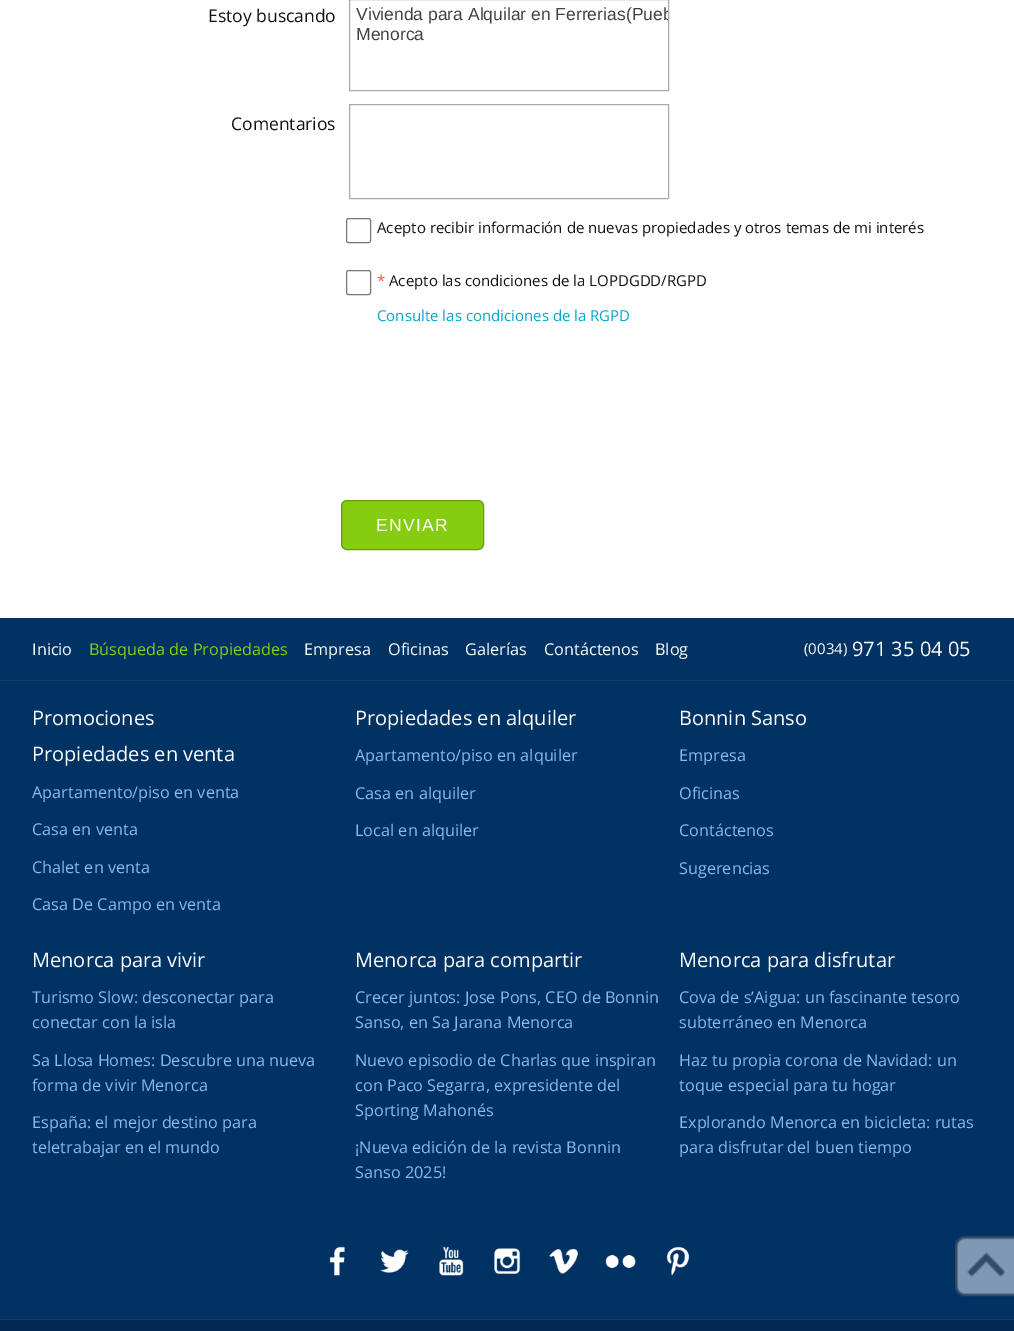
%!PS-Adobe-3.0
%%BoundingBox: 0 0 1014 1331
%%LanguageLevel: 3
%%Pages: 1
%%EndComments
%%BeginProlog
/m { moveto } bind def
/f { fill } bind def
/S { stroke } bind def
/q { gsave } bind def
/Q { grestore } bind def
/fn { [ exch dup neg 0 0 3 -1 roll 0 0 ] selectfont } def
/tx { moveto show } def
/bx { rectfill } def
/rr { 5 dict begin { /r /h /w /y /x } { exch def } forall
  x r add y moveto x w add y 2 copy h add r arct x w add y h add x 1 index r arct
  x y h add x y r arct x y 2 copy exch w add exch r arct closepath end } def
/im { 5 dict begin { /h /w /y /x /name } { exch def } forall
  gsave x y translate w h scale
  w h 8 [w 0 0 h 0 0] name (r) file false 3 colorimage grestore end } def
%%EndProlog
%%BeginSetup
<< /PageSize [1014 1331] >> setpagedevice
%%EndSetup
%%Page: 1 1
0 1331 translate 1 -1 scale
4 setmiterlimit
1 setgray
0 0 1014 1331 bx
/OpenSans-Regular 17.5 fn
0.067 setgray
(Estoy buscando) 208 22 tx
0.667 setgray
349.5 -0.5 319 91 rectstroke
/LiberationSans-Regular 17.5 fn
0.259 setgray
(Vivienda para Alquilar en Ferrerias) 356 20 tx
q
350 0 318 90 rectclip
(\(Pueb) 626 20 tx
Q
(Menorca) 356 40 tx
/OpenSans-Regular 17.5 fn
0.067 setgray
(Comentarios) 231 130 tx
0.667 setgray
349.5 104.5 319 94 rectstroke
0.463 setgray
346.5 218.5 24 24 2 rr S
/OpenSans-Regular 15 fn
0.067 setgray
(Acepto recibir información de nuevas propiedades y otros temas de mi interés) 377 233 tx
0.463 setgray
346.5 270.5 24 24 2 rr S
1 0.345 0.18 setrgbcolor
(*) 377 286 tx
0.067 setgray
(Acepto las condiciones de la LOPDGDD/RGPD) 389 286 tx
0 0.655 0.82 setrgbcolor
(Consulte las condiciones de la RGPD) 377 321 tx
0.525 0.804 0.067 setrgbcolor
341.5 500.5 142 49 5.5 rr q f Q
0.4 0.612 0.051 setrgbcolor
S
/LiberationSans-Regular 17.5 fn
1 setgray
376 531 m 1.25 0 (ENVIAR) ashow
0.004 0.196 0.392 setrgbcolor
0 618 1014 701 bx
0.106 0.247 0.392 setrgbcolor
0 680 1014 1 bx
/OpenSans-Regular 16.25 fn
1 setgray
(Inicio) 32 655 tx
0.525 0.804 0.067 setrgbcolor
(Búsqueda de Propiedades) 89 655 tx
1 setgray
(Empresa) 304 655 tx
(Oficinas) 388 655 tx
(Galerías) 465 655 tx
(Contáctenos) 544 655 tx
(Blog) 655 655 tx
/OpenSans-Regular 15 fn
(\(0034\)) 804 654 tx
/OpenSans-Regular 20 fn
(971 35 04 05) 852 656 tx
(Promociones) 32 725 tx
(Propiedades en venta) 32 761 tx
/OpenSans-Regular 16.25 fn
0.537 0.725 0.941 setrgbcolor
(Apartamento/piso en venta) 32 798 tx
(Casa en venta) 32 835 tx
(Chalet en venta) 32 873 tx
(Casa De Campo en venta) 32 910 tx
/OpenSans-Regular 20 fn
1 setgray
(Propiedades en alquiler) 355 725 tx
/OpenSans-Regular 16.25 fn
0.537 0.725 0.941 setrgbcolor
(Apartamento/piso en alquiler) 355 761 tx
(Casa en alquiler) 355 799 tx
(Local en alquiler) 355 836 tx
/OpenSans-Regular 20 fn
1 setgray
(Bonnin Sanso) 679 725 tx
/OpenSans-Regular 16.25 fn
0.537 0.725 0.941 setrgbcolor
(Empresa) 679 761 tx
(Oficinas) 679 799 tx
(Contáctenos) 679 836 tx
(Sugerencias) 679 874 tx
/OpenSans-Regular 20 fn
1 setgray
(Menorca para vivir) 32 967 tx
/OpenSans-Regular 16.25 fn
0.537 0.725 0.941 setrgbcolor
(Turismo Slow: desconectar para) 32 1003 tx
(conectar con la isla) 32 1028 tx
(Sa Llosa Homes: Descubre una nueva) 32 1066 tx
(forma de vivir Menorca) 32 1091 tx
(España: el mejor destino para) 32 1128 tx
(teletrabajar en el mundo) 32 1153 tx
/OpenSans-Regular 20 fn
1 setgray
(Menorca para compartir) 355 967 tx
/OpenSans-Regular 16.25 fn
0.537 0.725 0.941 setrgbcolor
(Crecer juntos: Jose Pons, CEO de Bonnin) 355 1003 tx
(Sanso, en Sa Jarana Menorca) 355 1028 tx
(Nuevo episodio de Charlas que inspiran) 355 1066 tx
(con Paco Segarra, expresidente del) 355 1091 tx
(Sporting Mahonés) 355 1116 tx
(¡Nueva edición de la revista Bonnin) 355 1153 tx
(Sanso 2025!) 355 1178 tx
/OpenSans-Regular 20 fn
1 setgray
(Menorca para disfrutar) 679 967 tx
/OpenSans-Regular 16.25 fn
0.537 0.725 0.941 setrgbcolor
(Cova de s’Aigua: un fascinante tesoro) 679 1003 tx
(subterráneo en Menorca) 679 1028 tx
(Haz tu propia corona de Navidad: un) 679 1066 tx
(toque especial para tu hogar) 679 1091 tx
(Explorando Menorca en bicicleta: rutas) 679 1128 tx
(para disfrutar del buen tiempo) 679 1153 tx
(image0.raw) 329 1246 16 30 im
(image1.raw) 380 1249 29 24 im
(image2.raw) 439 1246 25 30 im
(image3.raw) 494 1248 27 27 im
(image4.raw) 549 1248 41 26 im
(image5.raw) 605 1255 31 13 im
(image6.raw) 666 1246 24 30 im
0.004 0.161 0.322 setrgbcolor
0 1320 1014 11 bx
0.106 0.247 0.392 setrgbcolor
0 1319 1014 1 bx
(image7.raw) 955 1236 59 61 im
showpage
%%EOF
